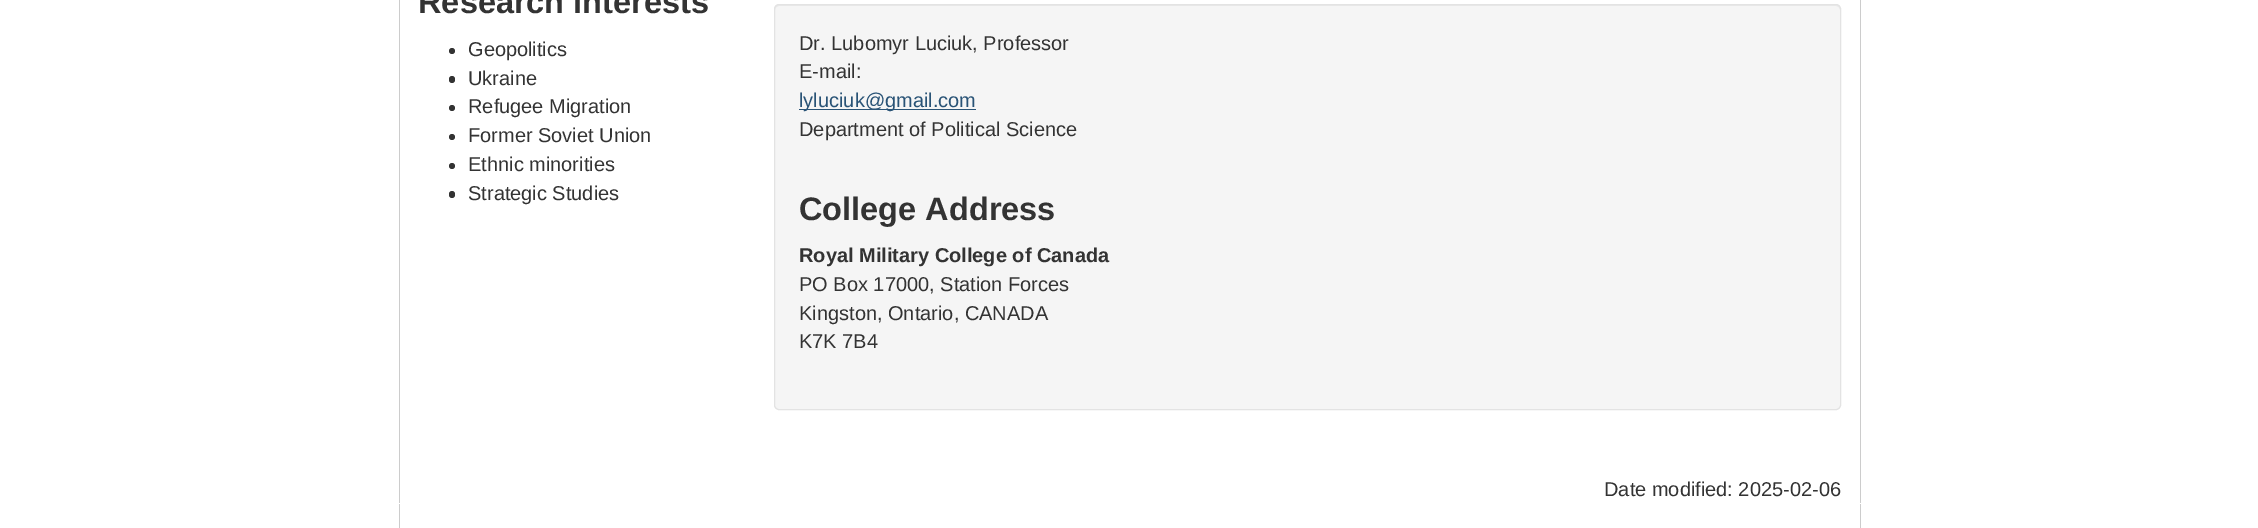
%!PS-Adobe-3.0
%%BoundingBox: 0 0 2258 528
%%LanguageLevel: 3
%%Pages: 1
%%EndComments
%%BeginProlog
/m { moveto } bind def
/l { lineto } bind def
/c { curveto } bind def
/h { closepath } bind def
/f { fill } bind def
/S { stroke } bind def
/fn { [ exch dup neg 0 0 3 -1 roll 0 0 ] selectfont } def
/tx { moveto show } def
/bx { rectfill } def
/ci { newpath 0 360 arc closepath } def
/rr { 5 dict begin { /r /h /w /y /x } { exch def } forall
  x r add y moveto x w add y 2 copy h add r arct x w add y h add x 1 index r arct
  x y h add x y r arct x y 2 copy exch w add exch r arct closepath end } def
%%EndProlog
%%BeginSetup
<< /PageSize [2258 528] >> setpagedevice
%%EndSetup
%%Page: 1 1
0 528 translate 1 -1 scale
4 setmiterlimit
1 setgray
0 0 2258 528 bx
0.8 setgray
1860 0 1 528 bx
399 0 1 528 bx
/LiberationSans-Bold 32.5 fn
0.2 setgray
(Research Interests) 418 13 tx
452 51 3 ci f
/LiberationSans-Regular 20 fn
(Geopolitics) 468 56 tx
449 76 6 7 3 rr f
(Ukraine) 468 85 tx
452 108 3 ci f
(Refugee Migration) 468 113 tx
452 137 3 ci f
(Former Soviet Union) 468 142 tx
452 166 3 ci f
(Ethnic minorities) 468 171 tx
449 191 6 7 3 rr f
(Strategic Studies) 468 200 tx
0.961 setgray
774 4 1067 406 5 rr f
0.914 setgray
779 6 m 1836 6 l 1838 6 1840 8 1840 10 c 1840 7 1839 5 1836 5 c 779 5 l 776 5 775 7 775 10 c 775 8 777 6 779 6 c h f
0.89 setgray
774.5 4.5 1066 405 4.5 rr S
0.2 setgray
(Dr. Lubomyr Luciuk, Professor) 799 50 tx
(E-mail:) 799 78 tx
0.161 0.325 0.463 setrgbcolor
799 109 177 1 bx
(lyluciuk@gmail.com) 799 107 tx
0.2 setgray
(Department of Political Science) 799 136 tx
/LiberationSans-Bold 32.5 fn
(College Address) 799 220 tx
/LiberationSans-Bold 20 fn
(Royal Military College of Canada) 799 262 tx
/LiberationSans-Regular 20 fn
(PO Box 17000, Station Forces) 799 291 tx
(Kingston, Ontario, CANADA) 799 320 tx
(K7K 7B4) 799 348 tx
(Date modified: 2025-02-06) 1604 496 tx
1 setgray
399 503 1462 1 bx
showpage
%%EOF
